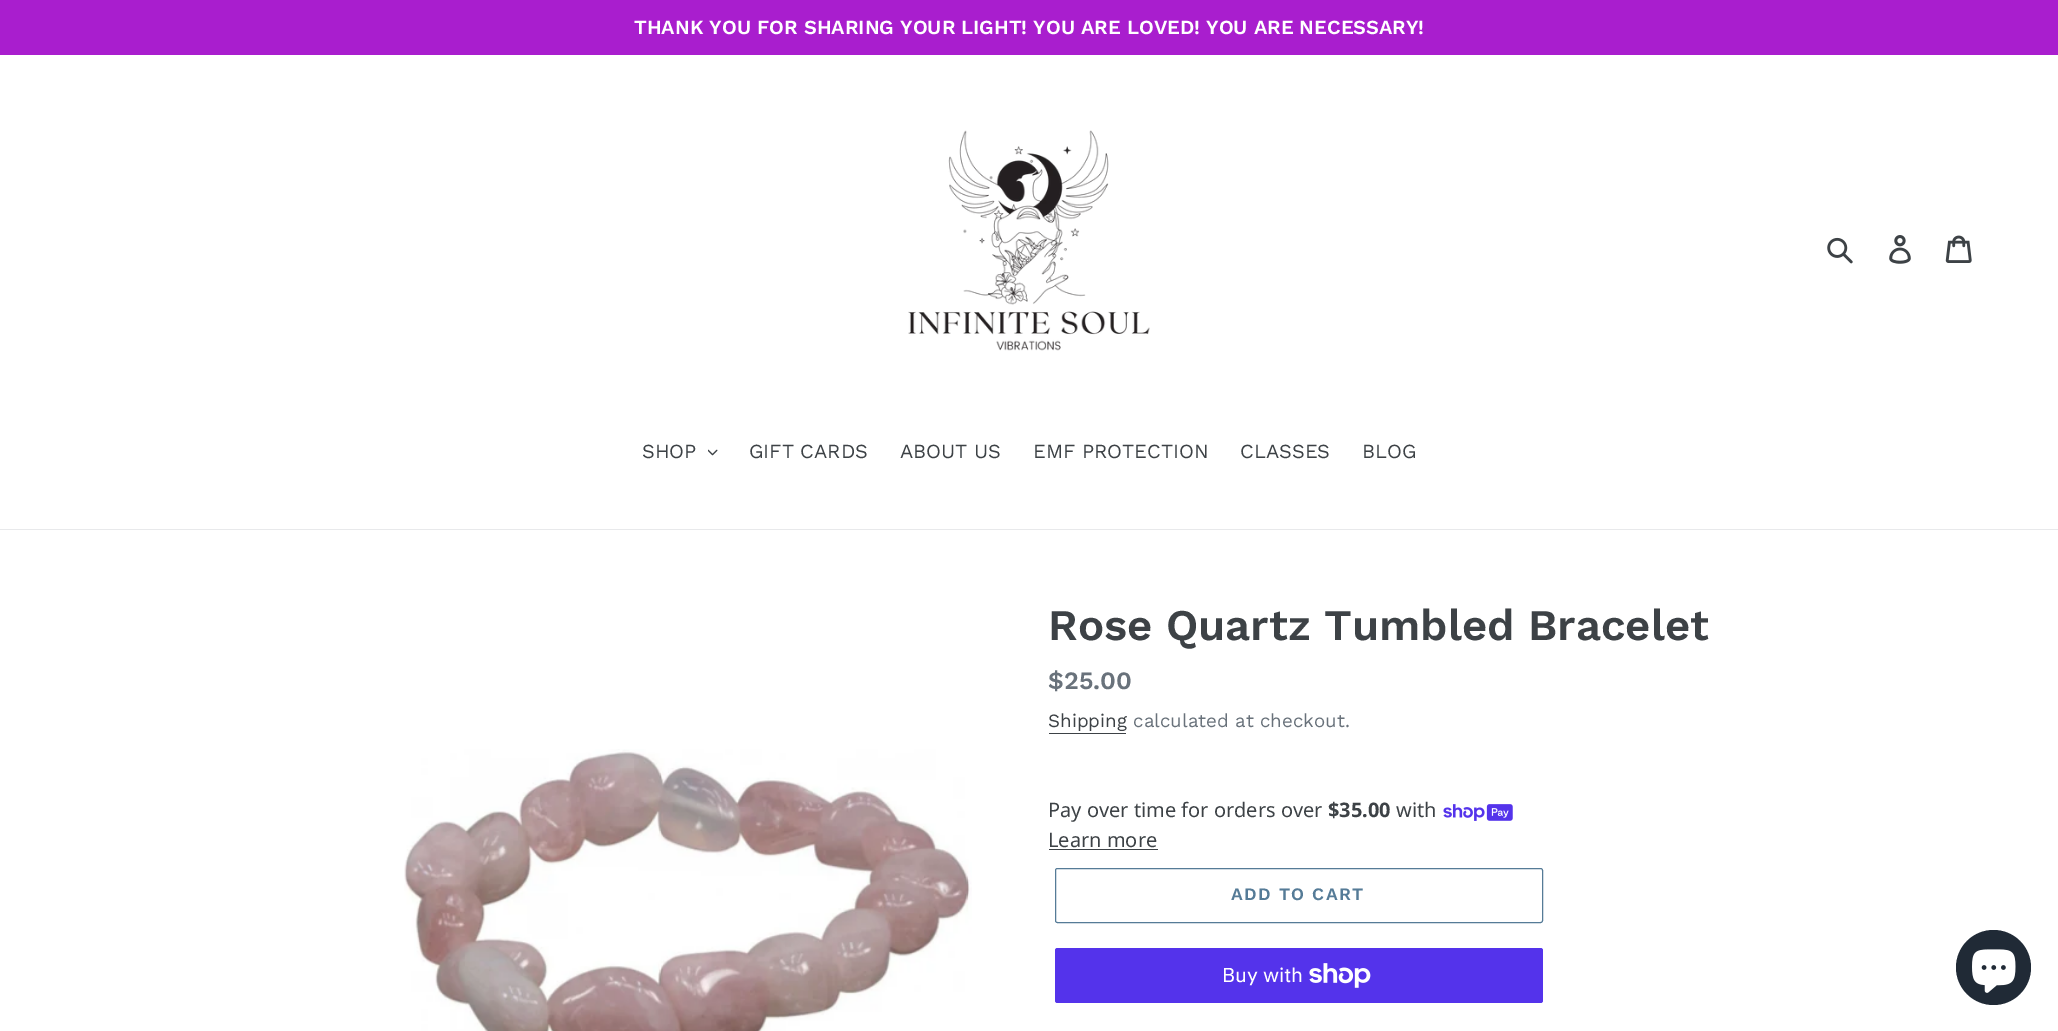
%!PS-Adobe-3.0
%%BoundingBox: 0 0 2058 1031
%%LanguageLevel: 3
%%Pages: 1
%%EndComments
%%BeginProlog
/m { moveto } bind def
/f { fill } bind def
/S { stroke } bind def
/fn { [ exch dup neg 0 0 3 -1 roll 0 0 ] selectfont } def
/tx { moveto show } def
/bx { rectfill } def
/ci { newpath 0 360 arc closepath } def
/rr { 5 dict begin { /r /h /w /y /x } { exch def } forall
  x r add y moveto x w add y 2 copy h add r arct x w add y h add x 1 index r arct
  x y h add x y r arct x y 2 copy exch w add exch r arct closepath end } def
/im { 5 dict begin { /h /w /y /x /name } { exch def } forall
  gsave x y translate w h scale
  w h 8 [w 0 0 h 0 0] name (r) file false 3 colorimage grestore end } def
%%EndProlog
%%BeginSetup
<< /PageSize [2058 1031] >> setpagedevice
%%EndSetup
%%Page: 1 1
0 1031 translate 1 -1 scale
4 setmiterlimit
1 setgray
0 0 2058 1031 bx
0.663 0.118 0.808 setrgbcolor
0 0 2058 55 bx
/WorkSans-SemiBold 20 fn
1 setgray
(THANK YOU FOR SHARING YOUR LIGHT! YOU ARE LOVED! YOU ARE NECESSARY!) 634 34 tx
(image0.raw) 908 130 242 221 im
(image1.raw) 1827 237 26 27 im
(image2.raw) 1889 235 22 29 im
(image3.raw) 1945 235 27 28 im
0.91 0.914 0.922 setrgbcolor
0 529 2058 1 bx
/WorkSans-Regular 20 fn
0.239 0.259 0.275 setrgbcolor
(SHOP) 642 458 tx
(image4.raw) 708 449 10 7 im
(GIFT CARDS) 749 458 tx
(ABOUT US) 900 458 tx
(EMF PROTECTION) 1033 458 tx
(CLASSES) 1240 458 tx
(BLOG) 1362 458 tx
(image5.raw) 404 749 568 282 im
/WorkSans-SemiBold 43.75 fn
(Rose Quartz Tumbled Bracelet) 1048 640 tx
/WorkSans-SemiBold 25 fn
0.412 0.447 0.482 setrgbcolor
($25.00) 1048 689 tx
/WorkSans-Regular 18.75 fn
0.239 0.259 0.275 setrgbcolor
(Shipping) 1048 727 tx
1049 733 77 1 bx
0.412 0.447 0.482 setrgbcolor
(calculated at checkout.) 1133 727 tx
/NotoSans-Regular 20 fn
0.239 0.259 0.275 setrgbcolor
(Pay over time for orders over) 1048 817 tx
/NotoSans-Bold 20 fn
($35.00) 1328 817 tx
/NotoSans-Regular 20 fn
(with) 1396 817 tx
(image6.raw) 1443 804 70 17 im
(Learn more) 1048 847 tx
1049 849 109 1 bx
0.333 0.482 0.592 setrgbcolor
1055.5 868.5 487 54 2 rr S
/WorkSans-SemiBold 17.5 fn
1231 900 m 1.4 0 (ADD TO CART) ashow
0.329 0.2 0.922 setrgbcolor
1055 948 488 55 2.5 rr f
/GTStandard-Regular 20 fn
1 setgray
(Buy with) 1222 982 tx
(image7.raw) 1309 963 62 25 im
0.125 0.165 0.212 setrgbcolor
1993.5 967.5 37.5 ci f
(image8.raw) 1972 949 44 44 im
showpage
%%EOF
